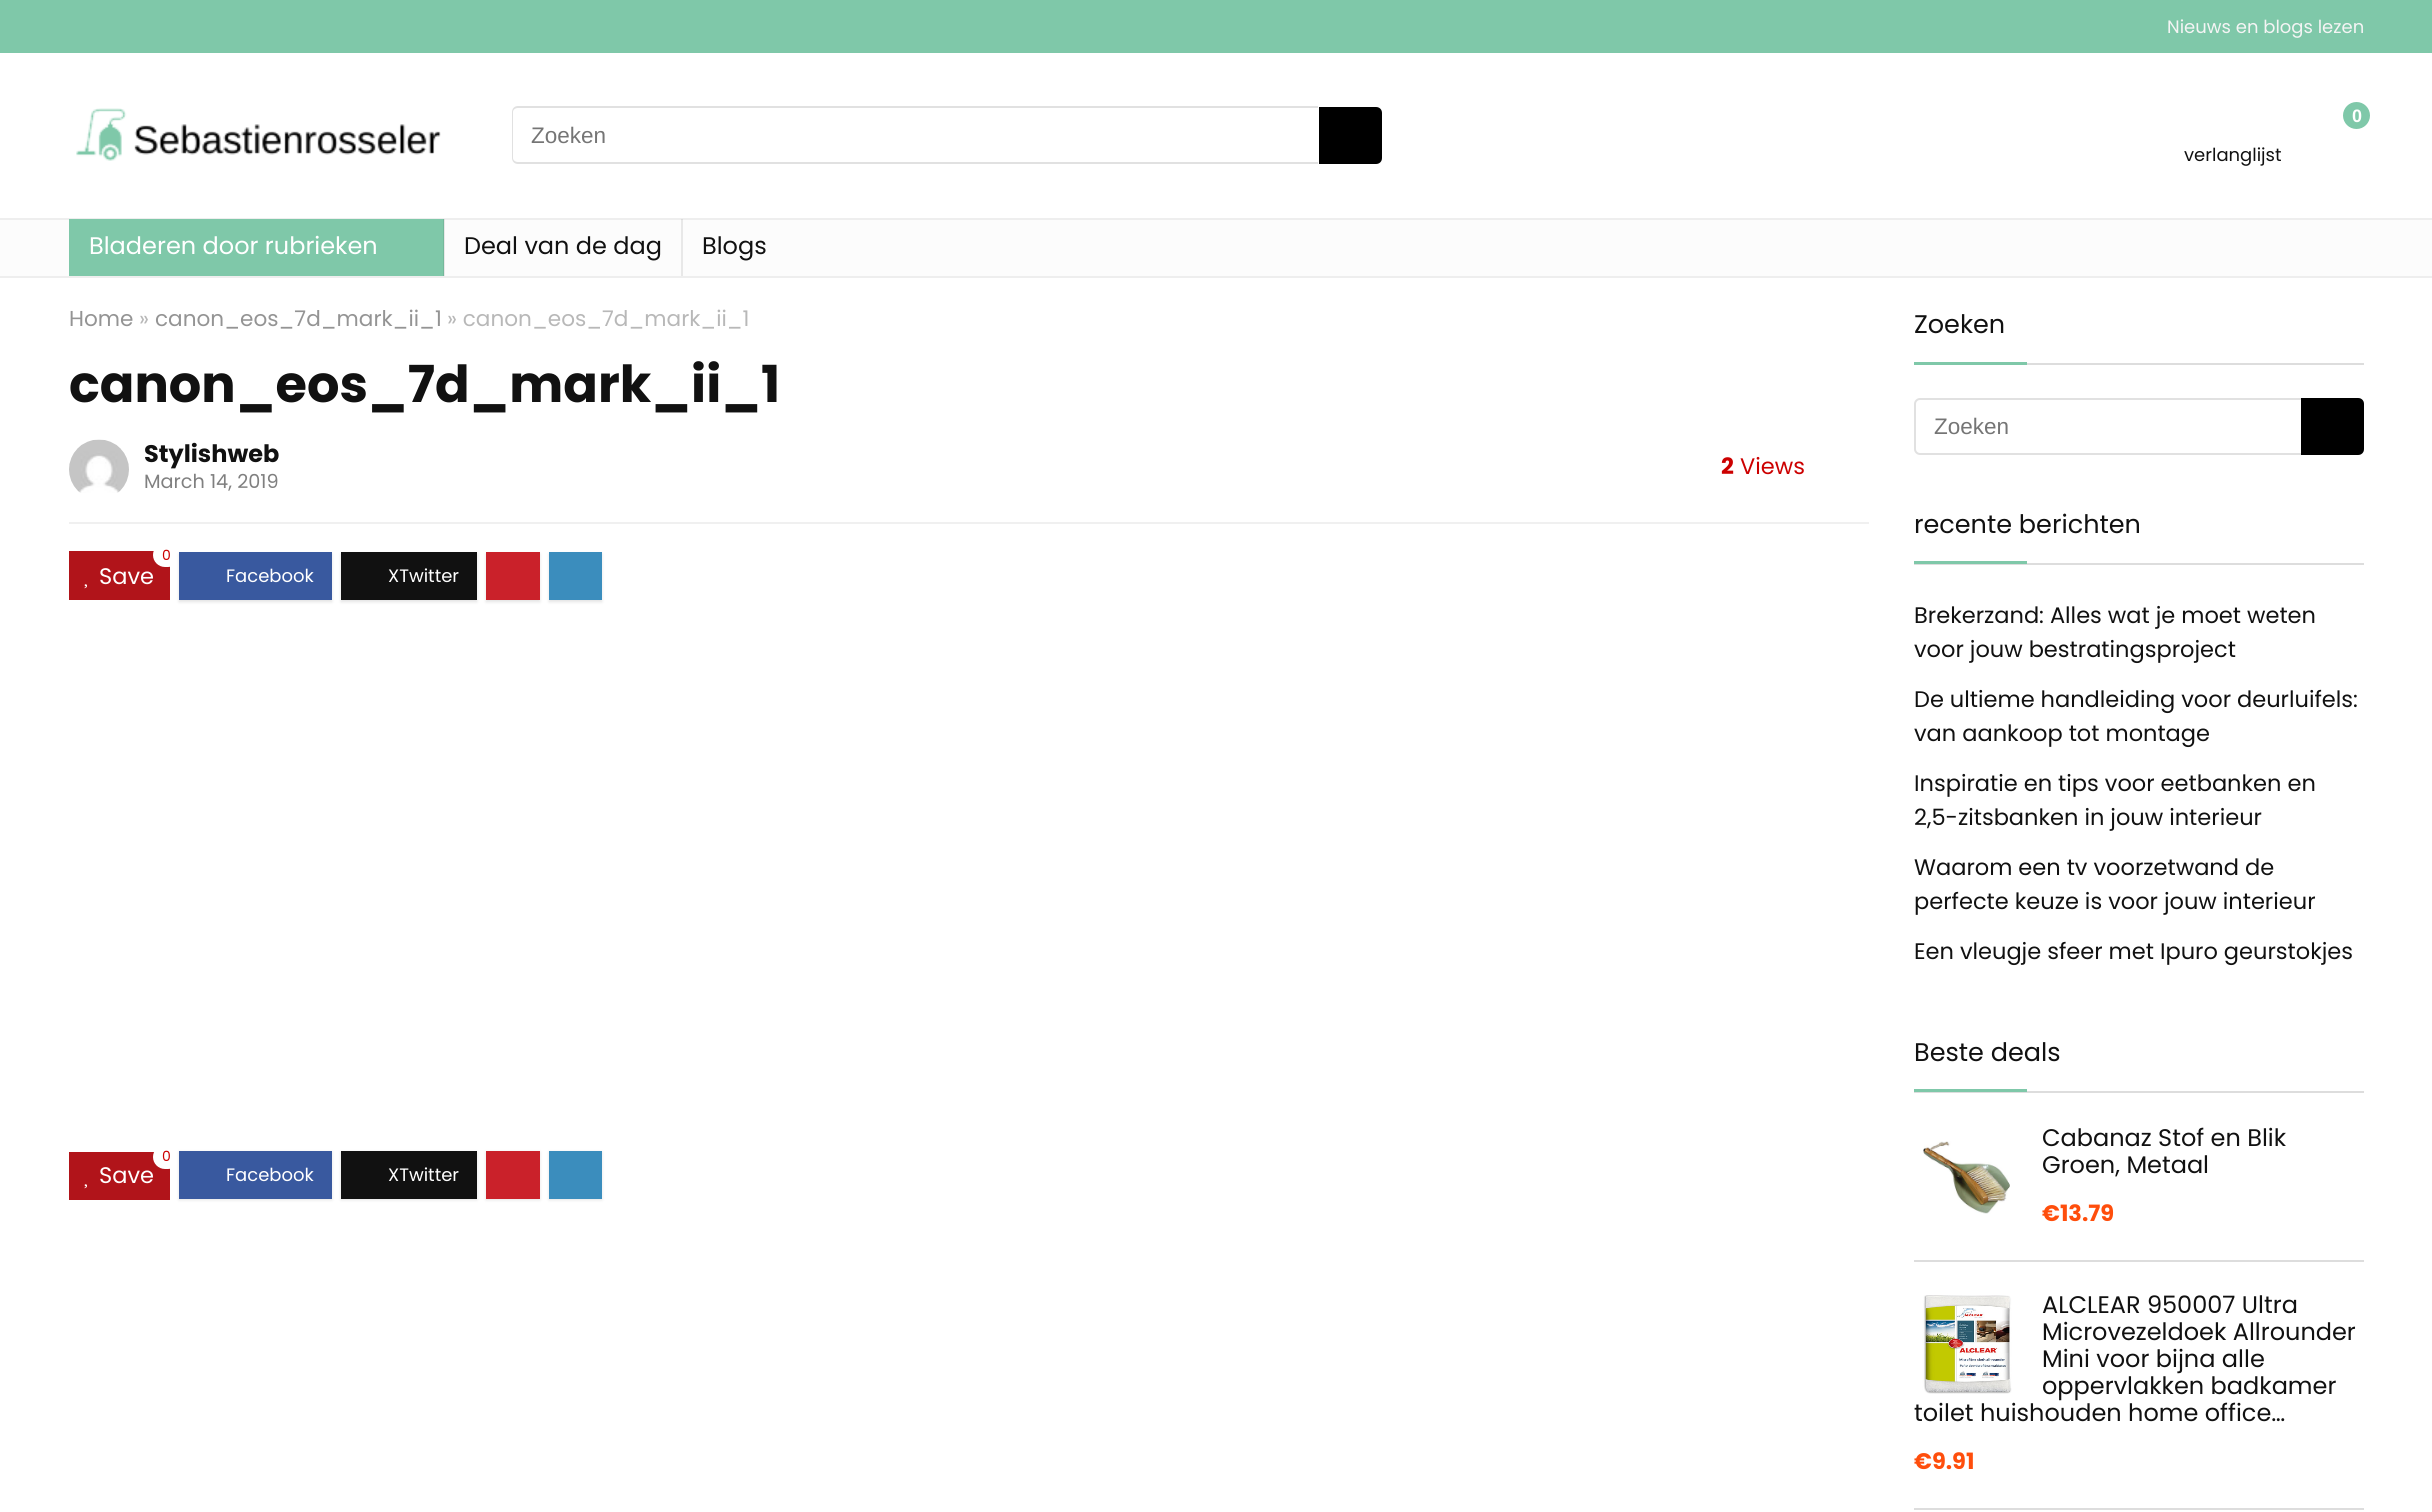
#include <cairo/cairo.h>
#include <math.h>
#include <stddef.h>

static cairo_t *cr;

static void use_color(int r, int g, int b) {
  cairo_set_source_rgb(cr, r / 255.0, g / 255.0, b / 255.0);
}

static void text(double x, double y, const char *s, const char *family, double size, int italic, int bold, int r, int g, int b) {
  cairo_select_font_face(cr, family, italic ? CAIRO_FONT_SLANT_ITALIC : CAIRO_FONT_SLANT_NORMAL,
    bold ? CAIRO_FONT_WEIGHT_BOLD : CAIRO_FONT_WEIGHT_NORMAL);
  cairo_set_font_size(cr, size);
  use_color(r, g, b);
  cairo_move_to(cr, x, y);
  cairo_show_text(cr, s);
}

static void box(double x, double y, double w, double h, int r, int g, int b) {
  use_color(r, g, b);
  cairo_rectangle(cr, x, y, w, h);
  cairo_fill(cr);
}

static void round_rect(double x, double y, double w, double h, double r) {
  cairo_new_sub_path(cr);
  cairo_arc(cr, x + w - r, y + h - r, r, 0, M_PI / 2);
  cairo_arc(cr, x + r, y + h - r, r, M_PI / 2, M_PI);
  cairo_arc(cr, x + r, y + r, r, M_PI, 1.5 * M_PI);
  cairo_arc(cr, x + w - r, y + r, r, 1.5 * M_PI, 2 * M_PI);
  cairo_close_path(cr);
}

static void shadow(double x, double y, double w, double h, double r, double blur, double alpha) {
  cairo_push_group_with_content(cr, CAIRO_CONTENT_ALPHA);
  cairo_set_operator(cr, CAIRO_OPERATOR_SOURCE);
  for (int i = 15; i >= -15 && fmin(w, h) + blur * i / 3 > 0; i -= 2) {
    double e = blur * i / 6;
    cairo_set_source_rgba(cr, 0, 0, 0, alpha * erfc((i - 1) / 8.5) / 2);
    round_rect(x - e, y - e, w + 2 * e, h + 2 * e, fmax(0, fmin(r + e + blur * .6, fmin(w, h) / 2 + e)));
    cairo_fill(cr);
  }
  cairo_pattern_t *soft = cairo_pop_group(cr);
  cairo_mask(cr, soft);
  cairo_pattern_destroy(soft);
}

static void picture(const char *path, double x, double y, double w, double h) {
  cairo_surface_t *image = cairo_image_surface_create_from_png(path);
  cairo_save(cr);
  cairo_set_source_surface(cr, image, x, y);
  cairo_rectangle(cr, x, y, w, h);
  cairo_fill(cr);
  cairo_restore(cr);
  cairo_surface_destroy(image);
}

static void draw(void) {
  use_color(255, 255, 255);
  cairo_paint(cr);
  box(0, 0, 2432, 53, 127, 200, 169);
  picture("img_01.png", 76, 108, 365, 53);
  use_color(225, 225, 225);
  cairo_set_fill_rule(cr, CAIRO_FILL_RULE_EVEN_ODD);
  cairo_new_path(cr);
  cairo_move_to(cr, 518, 106);
  cairo_line_to(cr, 1318, 106);
  cairo_line_to(cr, 1318, 164);
  cairo_line_to(cr, 518, 164);
  cairo_curve_to(cr, 514, 164, 512, 161, 512, 158);
  cairo_line_to(cr, 512, 112);
  cairo_curve_to(cr, 512, 109, 514, 106, 518, 106);
  cairo_close_path(cr);
  cairo_move_to(cr, 518, 108);
  cairo_line_to(cr, 1318, 108);
  cairo_line_to(cr, 1318, 162);
  cairo_line_to(cr, 518, 162);
  cairo_curve_to(cr, 515, 162, 513, 160, 513, 158);
  cairo_line_to(cr, 513, 112);
  cairo_curve_to(cr, 513, 110, 515, 108, 518, 108);
  cairo_close_path(cr);
  cairo_fill(cr);
  use_color(0, 0, 0);
  cairo_new_path(cr);
  cairo_move_to(cr, 1319, 107);
  cairo_line_to(cr, 1376, 107);
  cairo_curve_to(cr, 1379.5, 107, 1382, 109.5, 1382, 113);
  cairo_line_to(cr, 1382, 158);
  cairo_curve_to(cr, 1382, 161.5, 1379.5, 164, 1376, 164);
  cairo_line_to(cr, 1319, 164);
  cairo_close_path(cr);
  cairo_fill(cr);
  use_color(127, 200, 169);
  cairo_arc(cr, 2356.5, 115.5, 13.5, 0, 2 * M_PI);
  cairo_fill(cr);
  box(0, 220, 2432, 56, 252, 252, 252);
  box(681, 219, 2, 57, 232, 232, 232);
  box(444, 219, 1, 57, 232, 232, 232);
  box(0, 218, 2432, 2, 238, 238, 238);
  box(681, 219, 2, 1, 219, 219, 219);
  box(443, 219, 2, 1, 219, 219, 219);
  box(0, 276, 2432, 2, 238, 238, 238);
  box(69, 219, 374, 57, 127, 200, 169);
  box(443, 219, 1, 57, 117, 184, 155);
  box(69, 522, 1800, 2, 240, 240, 240);
  picture("img_02.png", 69, 439, 60, 54);
  box(69, 551, 101, 49, 177, 20, 26);
  cairo_save(cr);
  cairo_set_fill_rule(cr, CAIRO_FILL_RULE_WINDING);
  cairo_rectangle(cr, 69, 546, 1800, 63);
  cairo_clip(cr);
  use_color(255, 255, 255);
  round_rect(153, 543, 27, 24, 12);
  cairo_fill(cr);
  cairo_restore(cr);
  picture("img_03.png", 84, 584, 3, 5);
  use_color(228, 228, 228);
  shadow(179, 554, 153, 48, 0, 1.5, 1);
  box(179, 552, 153, 48, 57, 89, 159);
  use_color(228, 228, 228);
  shadow(341, 554, 136, 48, 0, 1.5, 1);
  box(341, 552, 136, 48, 17, 17, 17);
  use_color(228, 228, 228);
  shadow(486, 554, 54, 48, 0, 1.5, 1);
  box(486, 552, 54, 48, 202, 33, 42);
  use_color(228, 228, 228);
  shadow(549, 554, 53, 48, 0, 1.5, 1);
  box(549, 552, 53, 48, 59, 141, 189);
  box(69, 1152, 101, 48, 177, 20, 26);
  use_color(255, 255, 255);
  round_rect(153, 1145, 27, 24, 12);
  cairo_fill(cr);
  picture("img_03.png", 84, 1184, 3, 5);
  use_color(228, 228, 228);
  shadow(179, 1152, 153, 48, 0, 1.5, 1);
  box(179, 1151, 153, 48, 57, 89, 159);
  use_color(228, 228, 228);
  shadow(341, 1152, 136, 48, 0, 1.5, 1);
  box(341, 1151, 136, 48, 17, 17, 17);
  use_color(228, 228, 228);
  shadow(486, 1152, 54, 48, 0, 1.5, 1);
  box(486, 1151, 54, 48, 202, 33, 42);
  use_color(228, 228, 228);
  shadow(549, 1152, 53, 48, 0, 1.5, 1);
  box(549, 1151, 53, 48, 59, 141, 189);
  box(2027, 363, 337, 2, 221, 221, 221);
  box(1914, 362, 113, 3, 127, 200, 169);
  round_rect(1915, 399, 448, 55, 5);
  use_color(225, 225, 225);
  cairo_stroke(cr);
  use_color(0, 0, 0);
  cairo_new_path(cr);
  cairo_move_to(cr, 2301, 398);
  cairo_line_to(cr, 2358, 398);
  cairo_curve_to(cr, 2361.5, 398, 2364, 400.5, 2364, 404);
  cairo_line_to(cr, 2364, 449);
  cairo_curve_to(cr, 2364, 452.5, 2361.5, 455, 2358, 455);
  cairo_line_to(cr, 2301, 455);
  cairo_close_path(cr);
  cairo_fill(cr);
  box(1914, 563, 450, 2, 221, 221, 221);
  box(1914, 561, 113, 3, 127, 200, 169);
  box(1914, 1091, 450, 2, 221, 221, 221);
  box(1914, 1089, 113, 3, 127, 200, 169);
  box(1914, 1260, 450, 2, 221, 221, 221);
  picture("img_04.png", 1923, 1141, 87, 73);
  box(1914, 1508, 450, 2, 221, 221, 221);
  picture("img_05.png", 1922, 1295, 90, 99);
  text(2167, 33, "Nieuws en blogs lezen", "Poppins", 18, 0, 0, 244, 244, 244);
  text(531, 143, "Zoeken", "Liberation Sans", 22.5, 0, 0, 117, 117, 117);
  text(2352, 122, "0", "Liberation Sans", 18, 0, 1, 255, 255, 255);
  text(2184, 161, "verlanglijst", "Poppins", 18, 0, 0, 17, 17, 17);
  text(89, 254, "Bladeren door rubrieken", "Poppins", 24, 0, 0, 255, 255, 255);
  text(464, 254, "Deal van de dag", "Poppins", 24, 0, 0, 17, 17, 17);
  text(702, 254, "Blogs", "Poppins", 24, 0, 0, 17, 17, 17);
  text(69, 326, "Home", "Poppins", 21.6, 0, 0, 148, 148, 148);
  text(139, 326, "»", "Poppins", 21.6, 0, 0, 184, 184, 184);
  text(155, 326, "canon_eos_7d_mark_ii_1", "Poppins", 21.6, 0, 0, 148, 148, 148);
  text(447, 326, "» canon_eos_7d_mark_ii_1", "Poppins", 21.6, 0, 0, 184, 184, 184);
  text(69, 402, "canon_eos_7d_mark_ii_1", "Poppins", 51, 0, 1, 17, 17, 17);
  text(144, 462, "Stylishweb", "Poppins", 24, 0, 1, 17, 17, 17);
  text(144, 488, "March 14, 2019", "Poppins", 19.25, 0, 0, 128, 128, 128);
  text(1721, 474, "2", "Poppins", 22.5, 0, 1, 204, 0, 0);
  text(1740, 474, "Views", "Poppins", 22.5, 0, 0, 204, 0, 0);
  text(162, 560, "0", "Poppins", 14, 0, 0, 204, 0, 0);
  text(99, 584, "Save", "Poppins", 22.5, 0, 0, 255, 255, 255);
  text(226, 582, "Facebook", "Poppins", 18, 0, 0, 255, 255, 255);
  text(388, 582, "XTwitter", "Poppins", 18, 0, 0, 255, 255, 255);
  text(162, 1161, "0", "Poppins", 14, 0, 0, 204, 0, 0);
  text(99, 1183, "Save", "Poppins", 22.5, 0, 0, 255, 255, 255);
  text(226, 1181, "Facebook", "Poppins", 18, 0, 0, 255, 255, 255);
  text(388, 1181, "XTwitter", "Poppins", 18, 0, 0, 255, 255, 255);
  text(1914, 333, "Zoeken", "Poppins", 25.5, 0, 0, 17, 17, 17);
  text(1934, 434, "Zoeken", "Liberation Sans", 22.5, 0, 0, 117, 117, 117);
  text(1914, 533, "recente berichten", "Poppins", 25.5, 0, 0, 17, 17, 17);
  text(1914, 623, "Brekerzand: Alles wat je moet weten", "Poppins", 22.5, 0, 0, 17, 17, 17);
  text(1914, 657, "voor jouw bestratingsproject", "Poppins", 22.5, 0, 0, 17, 17, 17);
  text(1914, 707, "De ultieme handleiding voor deurluifels:", "Poppins", 22.5, 0, 0, 17, 17, 17);
  text(1914, 741, "van aankoop tot montage", "Poppins", 22.5, 0, 0, 17, 17, 17);
  text(1914, 791, "Inspiratie en tips voor eetbanken en", "Poppins", 22.5, 0, 0, 17, 17, 17);
  text(1914, 825, "2,5-zitsbanken in jouw interieur", "Poppins", 22.5, 0, 0, 17, 17, 17);
  text(1914, 875, "Waarom een tv voorzetwand de", "Poppins", 22.5, 0, 0, 17, 17, 17);
  text(1914, 909, "perfecte keuze is voor jouw interieur", "Poppins", 22.5, 0, 0, 17, 17, 17);
  text(1914, 959, "Een vleugje sfeer met Ipuro geurstokjes", "Poppins", 22.5, 0, 0, 17, 17, 17);
  text(1914, 1061, "Beste deals", "Poppins", 25.5, 0, 0, 17, 17, 17);
  text(2042, 1146, "Cabanaz Stof en Blik", "Poppins", 24, 0, 0, 17, 17, 17);
  text(2042, 1173, "Groen, Metaal", "Poppins", 24, 0, 0, 17, 17, 17);
  text(2042, 1221, "€13.79", "Poppins", 22.5, 0, 1, 255, 78, 12);
  text(2042, 1313, "ALCLEAR 950007 Ultra", "Poppins", 24, 0, 0, 17, 17, 17);
  text(2042, 1340, "Microvezeldoek Allrounder", "Poppins", 24, 0, 0, 17, 17, 17);
  text(2042, 1367, "Mini voor bijna alle", "Poppins", 24, 0, 0, 17, 17, 17);
  text(2042, 1394, "oppervlakken badkamer", "Poppins", 24, 0, 0, 17, 17, 17);
  text(1914, 1421, "toilet huishouden home office…", "Poppins", 24, 0, 0, 17, 17, 17);
  text(1914, 1469, "€9.91", "Poppins", 22.5, 0, 1, 255, 78, 12);
}

int main(void) {
  cairo_surface_t *surface = cairo_image_surface_create(CAIRO_FORMAT_RGB24, 2432, 1512);
  cr = cairo_create(surface);
  cairo_font_options_t *options = cairo_font_options_create();
  cairo_font_options_set_hint_metrics(options, CAIRO_HINT_METRICS_OFF);
  cairo_font_options_set_hint_style(options, CAIRO_HINT_STYLE_NONE);
  cairo_set_font_options(cr, options);
  cairo_set_miter_limit(cr, 4);
  draw();
  cairo_surface_write_to_png(surface, "out.png");
  cairo_font_options_destroy(options);
  cairo_destroy(cr);
  cairo_surface_destroy(surface);
  return 0;
}
